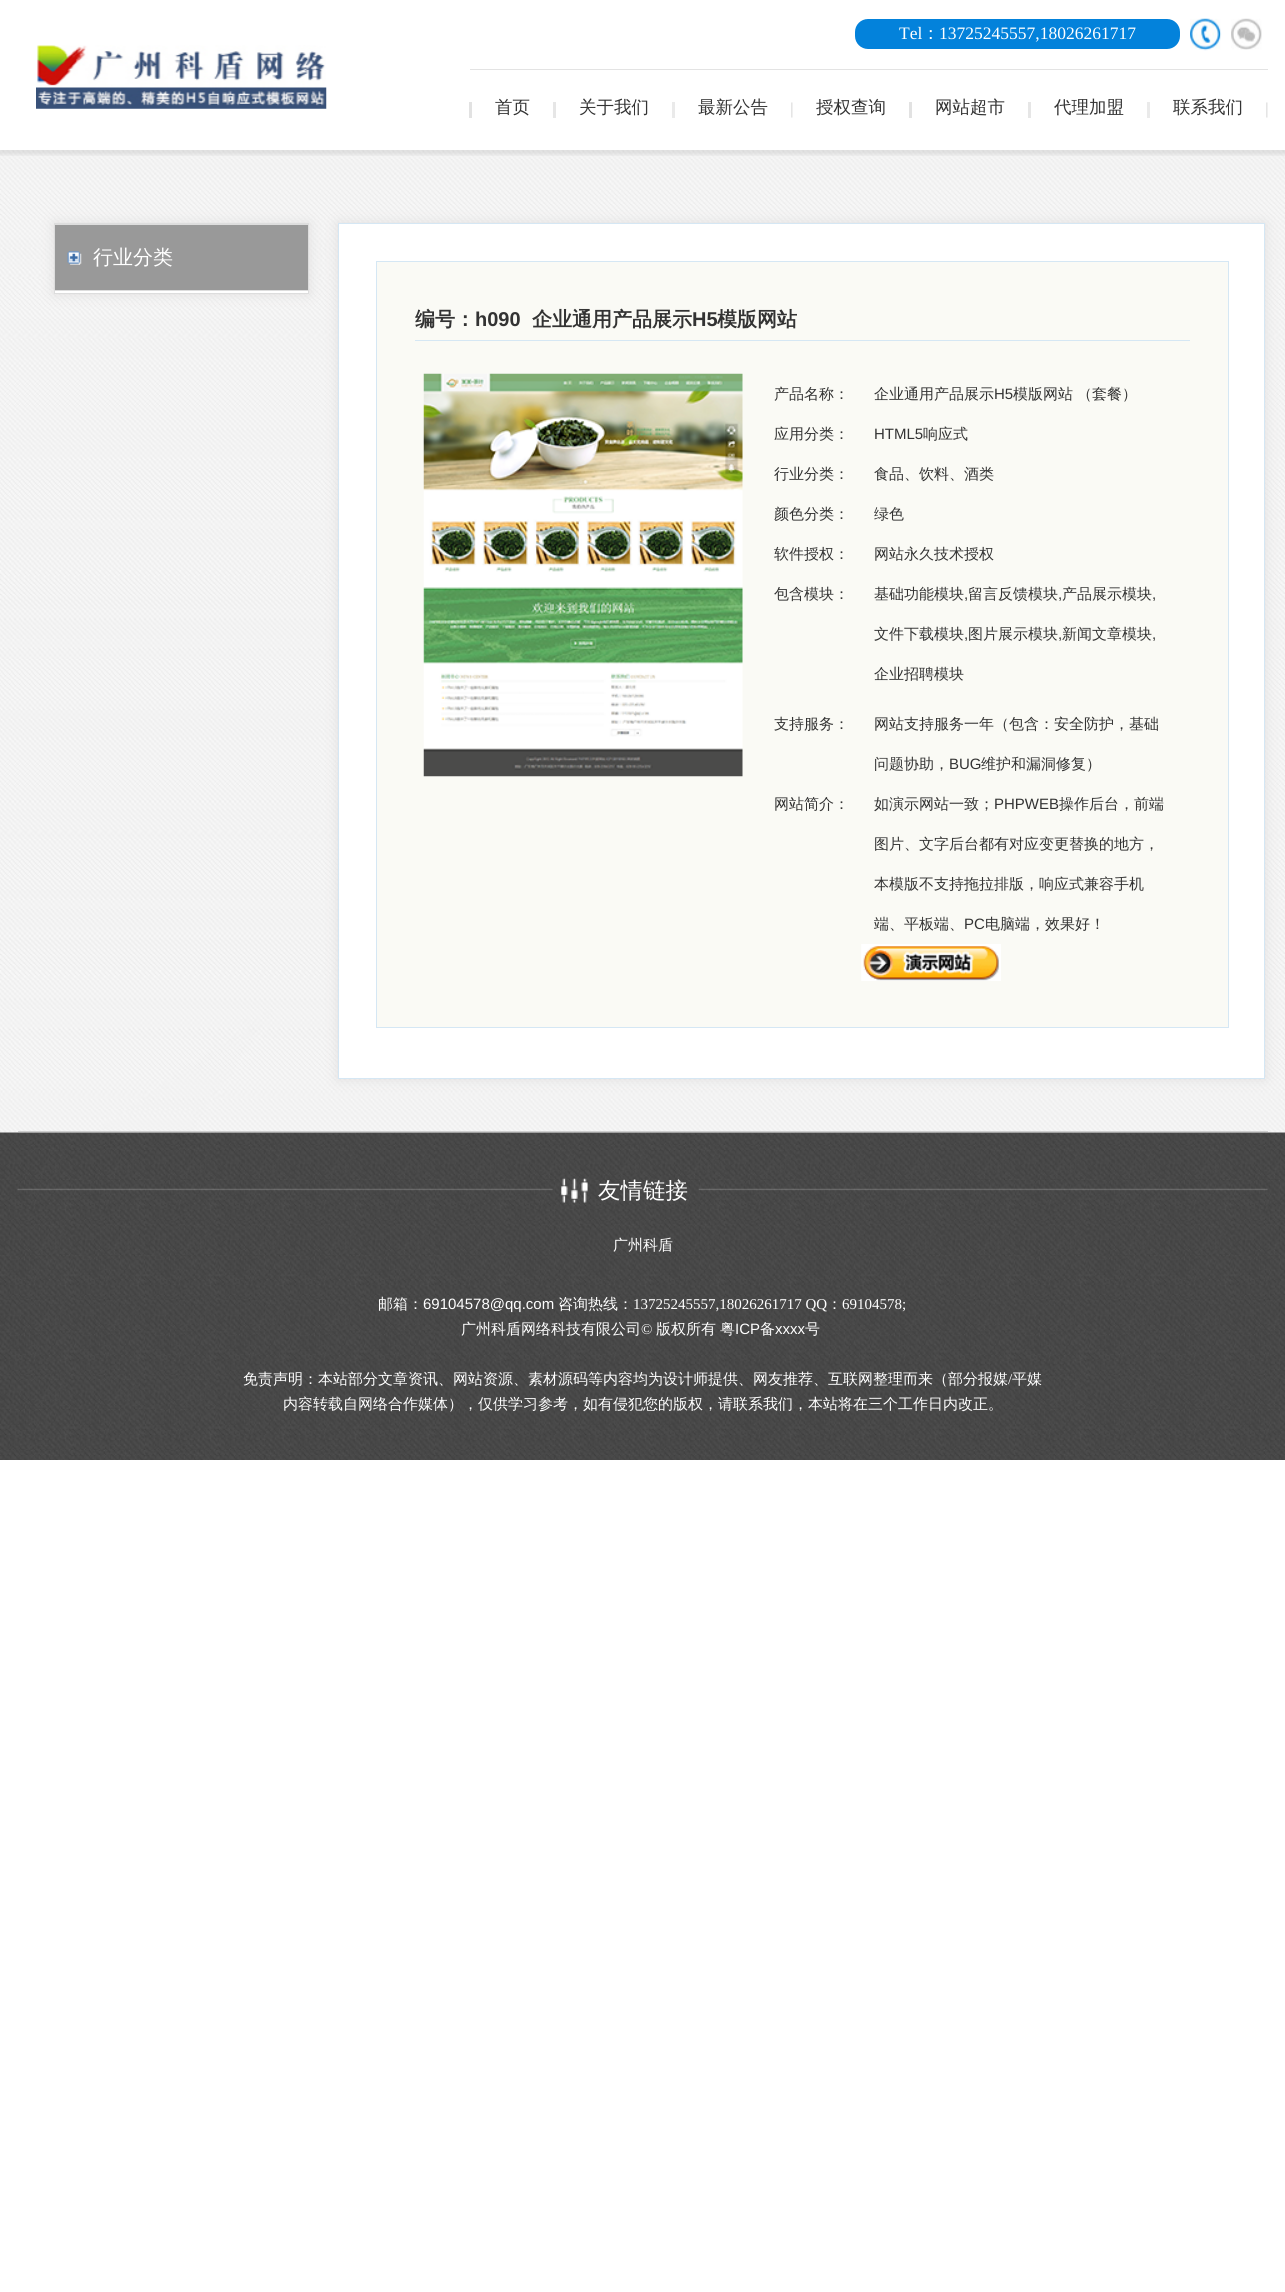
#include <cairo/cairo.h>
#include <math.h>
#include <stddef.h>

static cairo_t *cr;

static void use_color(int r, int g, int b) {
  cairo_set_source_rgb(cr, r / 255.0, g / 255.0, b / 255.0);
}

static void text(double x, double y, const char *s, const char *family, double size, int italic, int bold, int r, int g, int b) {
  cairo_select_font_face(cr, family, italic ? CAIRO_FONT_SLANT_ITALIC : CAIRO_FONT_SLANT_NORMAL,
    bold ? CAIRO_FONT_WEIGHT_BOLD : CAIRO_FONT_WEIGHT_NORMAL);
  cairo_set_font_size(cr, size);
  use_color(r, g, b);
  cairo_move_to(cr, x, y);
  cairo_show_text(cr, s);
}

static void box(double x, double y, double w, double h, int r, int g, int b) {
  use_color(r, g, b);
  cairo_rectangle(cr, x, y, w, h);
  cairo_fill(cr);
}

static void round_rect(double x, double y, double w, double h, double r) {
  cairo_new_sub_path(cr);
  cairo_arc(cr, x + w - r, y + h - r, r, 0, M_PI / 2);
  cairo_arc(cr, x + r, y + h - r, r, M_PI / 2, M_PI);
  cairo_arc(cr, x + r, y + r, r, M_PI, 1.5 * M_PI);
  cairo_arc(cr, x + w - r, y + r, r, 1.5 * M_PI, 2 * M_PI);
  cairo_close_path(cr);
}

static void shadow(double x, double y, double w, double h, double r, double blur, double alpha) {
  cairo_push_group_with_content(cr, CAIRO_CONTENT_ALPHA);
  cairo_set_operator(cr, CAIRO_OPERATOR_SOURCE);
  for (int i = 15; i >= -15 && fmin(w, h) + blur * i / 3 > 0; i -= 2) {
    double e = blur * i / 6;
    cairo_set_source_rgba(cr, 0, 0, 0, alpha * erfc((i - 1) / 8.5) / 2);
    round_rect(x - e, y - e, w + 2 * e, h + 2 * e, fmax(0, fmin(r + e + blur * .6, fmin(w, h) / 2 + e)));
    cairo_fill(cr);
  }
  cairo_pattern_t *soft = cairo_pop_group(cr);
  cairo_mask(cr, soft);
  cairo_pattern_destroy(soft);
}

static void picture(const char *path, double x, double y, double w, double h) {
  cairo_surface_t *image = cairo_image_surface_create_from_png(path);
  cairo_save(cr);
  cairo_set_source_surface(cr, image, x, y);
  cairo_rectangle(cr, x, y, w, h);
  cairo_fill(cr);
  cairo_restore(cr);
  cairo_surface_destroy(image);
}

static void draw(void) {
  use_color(255, 255, 255);
  cairo_paint(cr);
  picture("img_01.png", 36, 45, 291, 64);
  use_color(3, 130, 219);
  round_rect(855, 19, 325, 30, 13);
  cairo_fill(cr);
  picture("img_02.png", 1190, 18, 32, 33);
  picture("img_03.png", 1231, 18, 31, 32);
  box(470, 69, 798, 1, 227, 227, 227);
  box(469, 102, 3, 16, 226, 226, 226);
  box(553, 102, 3, 16, 230, 230, 230);
  box(672, 102, 3, 16, 234, 234, 234);
  picture("img_04.png", 791, 102, 2, 16);
  box(909, 102, 3, 16, 226, 226, 226);
  box(1028, 102, 3, 16, 230, 230, 230);
  box(1147, 102, 3, 16, 234, 234, 234);
  picture("img_04.png", 1266, 102, 2, 16);
  picture("img_06.png", 0, 150, 1285, 983);
  picture("img_05.png", 0, 150, 1285, 6);
  box(18, 1131, 1250, 1, 207, 207, 207);
  use_color(224, 222, 222);
  shadow(54, 223, 255, 71, 0, 6, 1);
  box(55, 291, 253, 2, 255, 255, 255);
  cairo_rectangle(cr, 54.5, 223.5, 254, 70);
  use_color(221, 221, 221);
  cairo_set_line_width(cr, 1);
  cairo_stroke(cr);
  box(55, 225, 253, 65, 153, 153, 153);
  picture("img_07.png", 67, 251, 15, 14);
  box(55, 224, 253, 1, 221, 221, 221);
  box(55, 290, 253, 1, 221, 221, 221);
  use_color(224, 222, 222);
  shadow(338, 223, 927, 856, 0, 6, 1);
  use_color(255, 255, 255);
  cairo_rectangle(cr, 338.5, 223.5, 926, 855);
  cairo_fill_preserve(cr);
  use_color(213, 231, 244);
  cairo_stroke(cr);
  use_color(250, 250, 245);
  cairo_rectangle(cr, 376.5, 261.5, 852, 766);
  cairo_fill_preserve(cr);
  use_color(213, 231, 244);
  cairo_stroke(cr);
  box(415, 340, 775, 1, 213, 231, 244);
  picture("img_08.png", 423, 373, 320, 404);
  picture("img_09.png", 861, 944, 140, 37);
  picture("img_10.png", 0, 1132, 1285, 328);
  picture("img_11.png", 17, 1178, 1251, 25);
  text(899, 39, "Tel", "Liberation Serif", 17.5, 0, 0, 255, 255, 255);
  text(922, 39, "：", "WenQuanYi Zen Hei Medium", 17.5, 0, 0, 255, 255, 255);
  text(939, 39, "13725245557,18026261717", "Liberation Serif", 17.5, 0, 0, 255, 255, 255);
  text(495, 113, "首页", "WenQuanYi Zen Hei Medium", 17.5, 0, 0, 51, 51, 51);
  text(579, 113, "关于我们", "WenQuanYi Zen Hei Medium", 17.5, 0, 0, 51, 51, 51);
  text(698, 113, "最新公告", "WenQuanYi Zen Hei Medium", 17.5, 0, 0, 51, 51, 51);
  text(816, 113, "授权查询", "WenQuanYi Zen Hei Medium", 17.5, 0, 0, 51, 51, 51);
  text(935, 113, "网站超市", "WenQuanYi Zen Hei Medium", 17.5, 0, 0, 51, 51, 51);
  text(1054, 113, "代理加盟", "WenQuanYi Zen Hei Medium", 17.5, 0, 0, 51, 51, 51);
  text(1173, 113, "联系我们", "WenQuanYi Zen Hei Medium", 17.5, 0, 0, 51, 51, 51);
  text(93, 264, "行业分类", "WenQuanYi Zen Hei Medium", 20, 0, 0, 255, 255, 255);
  text(415, 326, "编号：", "WenQuanYi Zen Hei", 20, 0, 1, 51, 51, 51);
  text(475, 326, "h090", "Liberation Sans", 20, 0, 1, 51, 51, 51);
  text(532, 326, "企业通用产品展示", "WenQuanYi Zen Hei", 20, 0, 1, 51, 51, 51);
  text(692, 326, "H5", "Liberation Sans", 20, 0, 1, 51, 51, 51);
  text(717, 326, "模版网站", "WenQuanYi Zen Hei", 20, 0, 1, 51, 51, 51);
  text(774, 399, "产品名称：", "WenQuanYi Zen Hei Medium", 15, 0, 0, 51, 51, 51);
  text(874, 399, "企业通用产品展示", "WenQuanYi Zen Hei Medium", 15, 0, 0, 51, 51, 51);
  text(994, 399, "H5", "Liberation Sans", 15, 0, 0, 51, 51, 51);
  text(1013, 399, "模版网站", "WenQuanYi Zen Hei Medium", 15, 0, 0, 51, 51, 51);
  text(1077, 399, "（套餐）", "WenQuanYi Zen Hei Medium", 15, 0, 0, 51, 51, 51);
  text(774, 439, "应用分类：", "WenQuanYi Zen Hei Medium", 15, 0, 0, 51, 51, 51);
  text(874, 439, "HTML5", "Liberation Sans", 15, 0, 0, 51, 51, 51);
  text(923, 439, "响应式", "WenQuanYi Zen Hei Medium", 15, 0, 0, 51, 51, 51);
  text(774, 479, "行业分类：", "WenQuanYi Zen Hei Medium", 15, 0, 0, 51, 51, 51);
  text(874, 479, "食品、饮料、酒类", "WenQuanYi Zen Hei Medium", 15, 0, 0, 51, 51, 51);
  text(774, 519, "颜色分类：", "WenQuanYi Zen Hei Medium", 15, 0, 0, 51, 51, 51);
  text(874, 519, "绿色", "WenQuanYi Zen Hei Medium", 15, 0, 0, 51, 51, 51);
  text(774, 559, "软件授权：", "WenQuanYi Zen Hei Medium", 15, 0, 0, 51, 51, 51);
  text(874, 559, "网站永久技术授权", "WenQuanYi Zen Hei Medium", 15, 0, 0, 51, 51, 51);
  text(774, 599, "包含模块：", "WenQuanYi Zen Hei Medium", 15, 0, 0, 51, 51, 51);
  text(874, 599, "基础功能模块", "WenQuanYi Zen Hei Medium", 15, 0, 0, 51, 51, 51);
  text(964, 599, ",", "Liberation Sans", 15, 0, 0, 51, 51, 51);
  text(968, 599, "留言反馈模块", "WenQuanYi Zen Hei Medium", 15, 0, 0, 51, 51, 51);
  text(1058, 599, ",", "Liberation Sans", 15, 0, 0, 51, 51, 51);
  text(1062, 599, "产品展示模块", "WenQuanYi Zen Hei Medium", 15, 0, 0, 51, 51, 51);
  text(1152, 599, ",", "Liberation Sans", 15, 0, 0, 51, 51, 51);
  text(874, 639, "文件下载模块", "WenQuanYi Zen Hei Medium", 15, 0, 0, 51, 51, 51);
  text(964, 639, ",", "Liberation Sans", 15, 0, 0, 51, 51, 51);
  text(968, 639, "图片展示模块", "WenQuanYi Zen Hei Medium", 15, 0, 0, 51, 51, 51);
  text(1058, 639, ",", "Liberation Sans", 15, 0, 0, 51, 51, 51);
  text(1062, 639, "新闻文章模块", "WenQuanYi Zen Hei Medium", 15, 0, 0, 51, 51, 51);
  text(1152, 639, ",", "Liberation Sans", 15, 0, 0, 51, 51, 51);
  text(874, 679, "企业招聘模块", "WenQuanYi Zen Hei Medium", 15, 0, 0, 51, 51, 51);
  text(774, 729, "支持服务：", "WenQuanYi Zen Hei Medium", 15, 0, 0, 51, 51, 51);
  text(874, 729, "网站支持服务一年（包含：安全防护，基础", "WenQuanYi Zen Hei Medium", 15, 0, 0, 51, 51, 51);
  text(874, 769, "问题协助，", "WenQuanYi Zen Hei Medium", 15, 0, 0, 51, 51, 51);
  text(949, 769, "BUG", "Liberation Sans", 15, 0, 0, 51, 51, 51);
  text(981, 769, "维护和漏洞修复）", "WenQuanYi Zen Hei Medium", 15, 0, 0, 51, 51, 51);
  text(774, 809, "网站简介：", "WenQuanYi Zen Hei Medium", 15, 0, 0, 51, 51, 51);
  text(874, 809, "如演示网站一致；", "WenQuanYi Zen Hei Medium", 15, 0, 0, 51, 51, 51);
  text(994, 809, "PHPWEB", "Liberation Sans", 15, 0, 0, 51, 51, 51);
  text(1059, 809, "操作后台，前端", "WenQuanYi Zen Hei Medium", 15, 0, 0, 51, 51, 51);
  text(874, 849, "图片、文字后台都有对应变更替换的地方，", "WenQuanYi Zen Hei Medium", 15, 0, 0, 51, 51, 51);
  text(874, 889, "本模版不支持拖拉排版，响应式兼容手机", "WenQuanYi Zen Hei Medium", 15, 0, 0, 51, 51, 51);
  text(874, 929, "端、平板端、", "WenQuanYi Zen Hei Medium", 15, 0, 0, 51, 51, 51);
  text(964, 929, "PC", "Liberation Sans", 15, 0, 0, 51, 51, 51);
  text(985, 929, "电脑端，效果好！", "WenQuanYi Zen Hei Medium", 15, 0, 0, 51, 51, 51);
  text(598, 1198, "友情链接", "WenQuanYi Zen Hei Medium", 22.5, 0, 0, 255, 255, 255);
  text(613, 1250, "广州科盾", "WenQuanYi Zen Hei Medium", 15, 0, 0, 255, 255, 255);
  text(378, 1309, "邮箱：", "WenQuanYi Zen Hei Medium", 15, 0, 0, 255, 255, 255);
  text(423, 1309, "69104578@qq.com", "Liberation Sans", 15, 0, 0, 255, 255, 255);
  text(558, 1309, "咨询热线：", "WenQuanYi Zen Hei Medium", 15, 0, 0, 255, 255, 255);
  text(633, 1309, "13725245557,18026261717 QQ", "Liberation Serif", 15, 0, 0, 255, 255, 255);
  text(827, 1309, "：", "WenQuanYi Zen Hei Medium", 15, 0, 0, 255, 255, 255);
  text(842, 1309, "69104578;", "Liberation Serif", 15, 0, 0, 255, 255, 255);
  text(461, 1334, "广州科盾网络科技有限公司", "WenQuanYi Zen Hei Medium", 15, 0, 0, 255, 255, 255);
  text(641, 1334, "©", "Liberation Serif", 15, 0, 0, 255, 255, 255);
  text(656, 1334, "版权所有", "WenQuanYi Zen Hei Medium", 15, 0, 0, 255, 255, 255);
  text(720, 1334, "粤", "WenQuanYi Zen Hei Medium", 15, 0, 0, 255, 255, 255);
  text(735, 1334, "ICP", "Liberation Sans", 15, 0, 0, 255, 255, 255);
  text(760, 1334, "备", "WenQuanYi Zen Hei Medium", 15, 0, 0, 255, 255, 255);
  text(775, 1334, "xxxx", "Liberation Sans", 15, 0, 0, 255, 255, 255);
  text(805, 1334, "号", "WenQuanYi Zen Hei Medium", 15, 0, 0, 255, 255, 255);
  text(243, 1384, "免责声明：本站部分文章资讯、网站资源、素材源码等内容均为设计师提供、网友推荐、互联网整理而来（部分报媒", "WenQuanYi Zen Hei Medium", 15, 0, 0, 255, 255, 255);
  text(1008, 1384, "/", "Liberation Serif", 15, 0, 0, 255, 255, 255);
  text(1012, 1384, "平媒", "WenQuanYi Zen Hei Medium", 15, 0, 0, 255, 255, 255);
  text(283, 1409, "内容转载自网络合作媒体），仅供学习参考，如有侵犯您的版权，请联系我们，本站将在三个工作日内改正。", "WenQuanYi Zen Hei Medium", 15, 0, 0, 255, 255, 255);
}

int main(void) {
  cairo_surface_t *surface = cairo_image_surface_create(CAIRO_FORMAT_RGB24, 1285, 2292);
  cr = cairo_create(surface);
  cairo_font_options_t *options = cairo_font_options_create();
  cairo_font_options_set_hint_metrics(options, CAIRO_HINT_METRICS_OFF);
  cairo_font_options_set_hint_style(options, CAIRO_HINT_STYLE_NONE);
  cairo_set_font_options(cr, options);
  cairo_set_miter_limit(cr, 4);
  draw();
  cairo_surface_write_to_png(surface, "out.png");
  cairo_font_options_destroy(options);
  cairo_destroy(cr);
  cairo_surface_destroy(surface);
  return 0;
}
